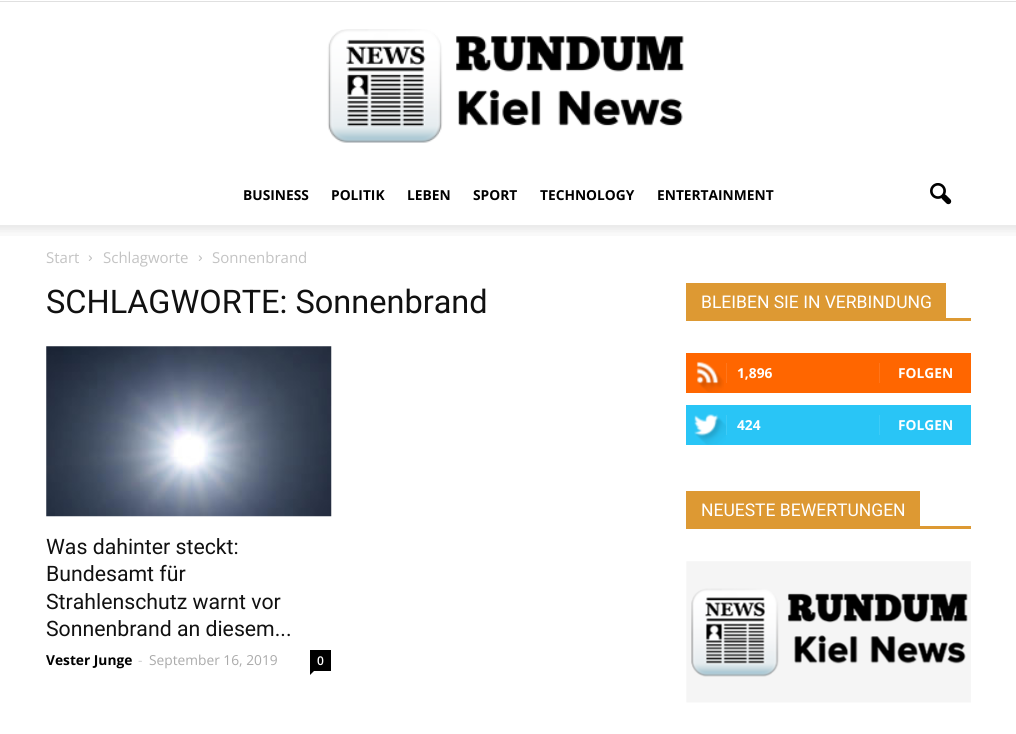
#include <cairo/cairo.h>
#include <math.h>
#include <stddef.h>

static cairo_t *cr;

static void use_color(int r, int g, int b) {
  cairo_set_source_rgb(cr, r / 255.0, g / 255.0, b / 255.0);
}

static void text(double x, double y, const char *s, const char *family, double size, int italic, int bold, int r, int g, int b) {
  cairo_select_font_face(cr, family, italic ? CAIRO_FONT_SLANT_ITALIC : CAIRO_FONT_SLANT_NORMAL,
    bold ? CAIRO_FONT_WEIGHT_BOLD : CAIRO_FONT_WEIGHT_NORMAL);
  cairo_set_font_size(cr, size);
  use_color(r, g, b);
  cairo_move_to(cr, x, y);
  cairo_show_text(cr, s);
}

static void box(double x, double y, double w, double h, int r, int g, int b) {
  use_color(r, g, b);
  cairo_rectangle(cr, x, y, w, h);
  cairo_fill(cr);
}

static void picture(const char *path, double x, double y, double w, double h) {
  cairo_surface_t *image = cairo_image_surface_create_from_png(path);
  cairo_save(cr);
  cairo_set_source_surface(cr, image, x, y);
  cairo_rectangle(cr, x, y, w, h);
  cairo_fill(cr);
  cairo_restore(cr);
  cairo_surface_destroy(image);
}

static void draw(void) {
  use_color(255, 255, 255);
  cairo_paint(cr);
  box(0, 1, 1016, 1, 224, 224, 224);
  picture("img_01.png", 327, 29, 357, 114);
  picture("img_02.png", 930, 183, 22, 22);
  picture("img_03.png", 0, 225, 1016, 11);
  picture("img_04.png", 88, 255, 4, 6);
  picture("img_04.png", 198, 255, 4, 6);
  picture("img_05.png", 46, 346, 286, 171);
  box(310, 650, 21, 21, 0, 0, 0);
  cairo_new_path(cr);
  cairo_move_to(cr, 310, 671);
  cairo_line_to(cr, 314, 671);
  cairo_line_to(cr, 310, 675);
  cairo_close_path(cr);
  cairo_fill(cr);
  box(686, 318, 285, 3, 221, 153, 51);
  box(686, 283, 260, 35, 221, 153, 51);
  box(686, 353, 285, 40, 255, 102, 0);
  picture("img_06.png", 696, 361, 28, 31);
  box(726, 363, 1, 20, 255, 117, 26);
  box(879, 363, 1, 20, 255, 117, 26);
  box(686, 405, 285, 40, 41, 197, 246);
  picture("img_07.png", 694, 414, 32, 31);
  box(726, 415, 1, 20, 62, 203, 247);
  box(879, 415, 1, 20, 62, 203, 247);
  box(686, 526, 285, 3, 221, 153, 51);
  box(686, 491, 234, 35, 221, 153, 51);
  picture("img_08.png", 686, 561, 285, 142);
  text(243, 200, "BUSINESS", "Open Sans", 13.75, 0, 1, 0, 0, 0);
  text(331, 200, "POLITIK", "Open Sans", 13.75, 0, 1, 0, 0, 0);
  text(407, 200, "LEBEN", "Open Sans", 13.75, 0, 1, 0, 0, 0);
  text(473, 200, "SPORT", "Open Sans", 13.75, 0, 1, 0, 0, 0);
  text(540, 200, "TECHNOLOGY", "Open Sans", 13.75, 0, 1, 0, 0, 0);
  text(657, 200, "ENTERTAINMENT", "Open Sans", 13.75, 0, 1, 0, 0, 0);
  text(46, 263, "Start", "Open Sans", 15, 0, 0, 195, 195, 195);
  text(103, 263, "Schlagworte", "Open Sans", 15, 0, 0, 195, 195, 195);
  text(212, 263, "Sonnenbrand", "Open Sans", 15, 0, 0, 195, 195, 195);
  text(46, 313, "SCHLAGWORTE: Sonnenbrand", "Roboto", 32.5, 0, 0, 17, 17, 17);
  text(46, 554, "Was dahinter steckt:", "Roboto", 21.25, 0, 0, 17, 17, 17);
  text(46, 581, "Bundesamt für", "Roboto", 21.25, 0, 0, 17, 17, 17);
  text(46, 609, "Strahlenschutz warnt vor", "Roboto", 21.25, 0, 0, 17, 17, 17);
  text(46, 636, "Sonnenbrand an diesem...", "Roboto", 21.25, 0, 0, 17, 17, 17);
  text(46, 665, "Vester Junge", "Open Sans", 13.75, 0, 1, 0, 0, 0);
  text(138, 665, "-", "Open Sans", 13.75, 0, 0, 204, 204, 204);
  text(149, 665, "September 16, 2019", "Open Sans", 13.75, 0, 0, 170, 170, 170);
  text(317, 665, "0", "Open Sans SemiBold", 12, 0, 0, 255, 255, 255);
  text(701, 308, "BLEIBEN SIE IN VERBINDUNG", "Roboto", 17.5, 0, 0, 255, 255, 255);
  text(737, 378, "1,896", "Open Sans", 13.75, 0, 1, 255, 255, 255);
  text(898, 378, "FOLGEN", "Open Sans", 13.75, 0, 1, 255, 255, 255);
  text(737, 430, "424", "Open Sans", 13.75, 0, 1, 255, 255, 255);
  text(898, 430, "FOLGEN", "Open Sans", 13.75, 0, 1, 255, 255, 255);
  text(701, 516, "NEUESTE BEWERTUNGEN", "Roboto", 17.5, 0, 0, 255, 255, 255);
}

int main(void) {
  cairo_surface_t *surface = cairo_image_surface_create(CAIRO_FORMAT_RGB24, 1016, 734);
  cr = cairo_create(surface);
  cairo_font_options_t *options = cairo_font_options_create();
  cairo_font_options_set_hint_metrics(options, CAIRO_HINT_METRICS_OFF);
  cairo_font_options_set_hint_style(options, CAIRO_HINT_STYLE_NONE);
  cairo_set_font_options(cr, options);
  cairo_set_miter_limit(cr, 4);
  draw();
  cairo_surface_write_to_png(surface, "out.png");
  cairo_font_options_destroy(options);
  cairo_destroy(cr);
  cairo_surface_destroy(surface);
  return 0;
}
